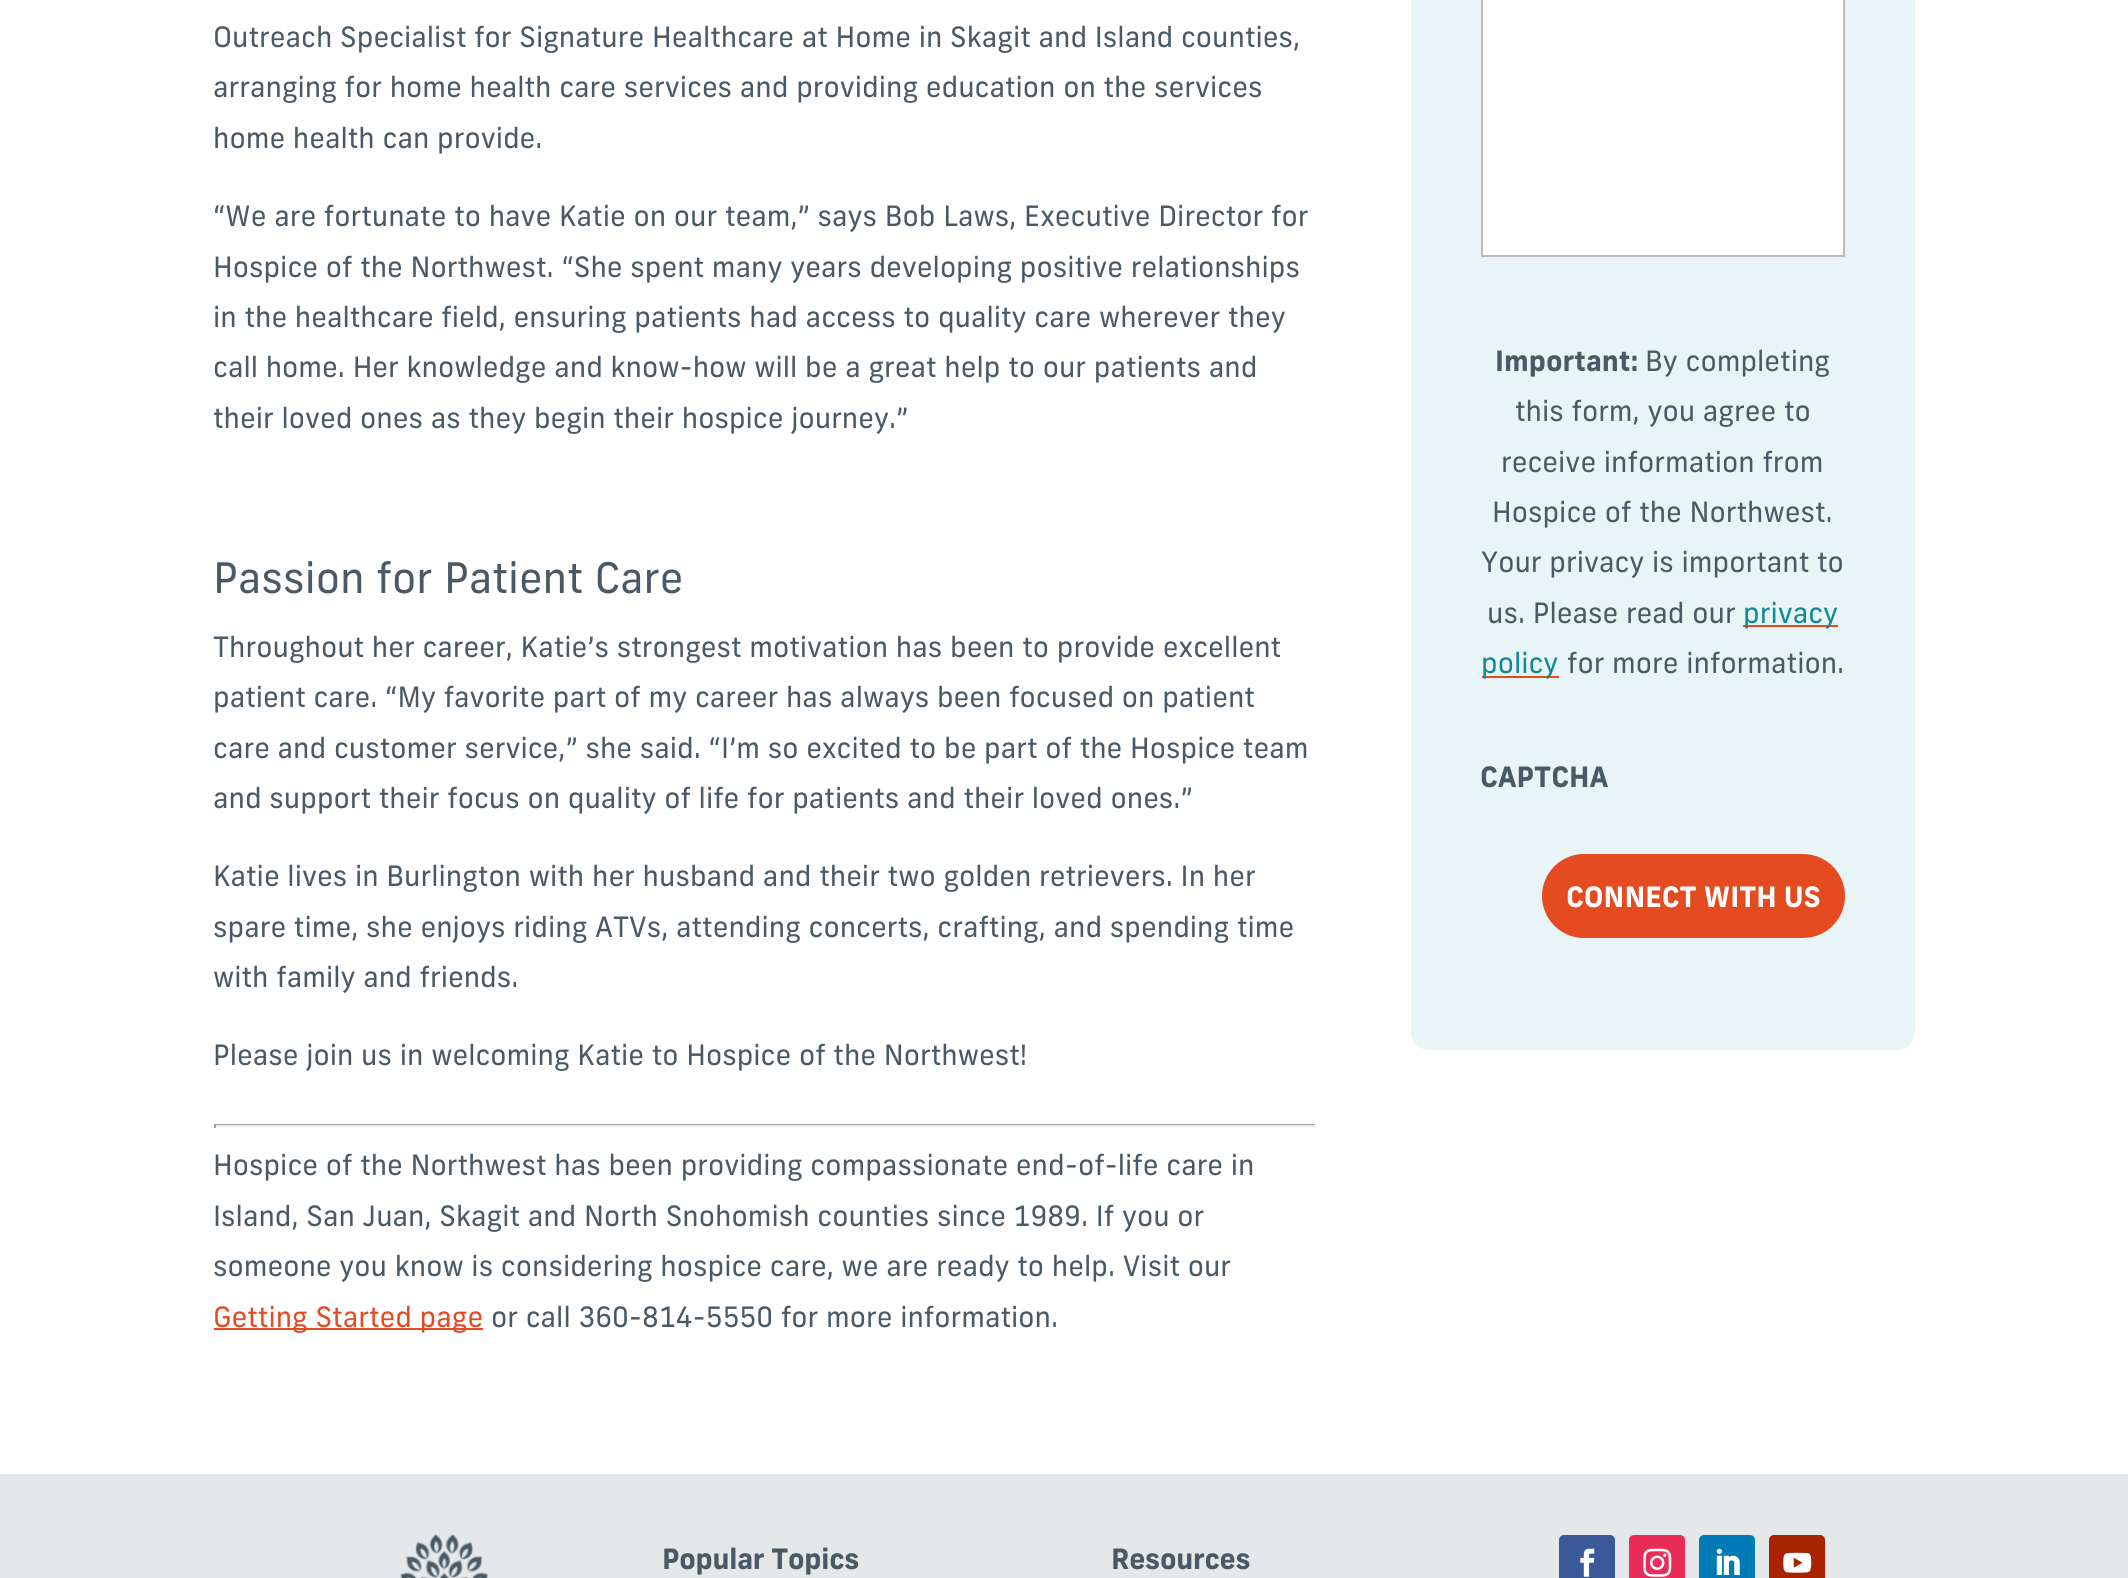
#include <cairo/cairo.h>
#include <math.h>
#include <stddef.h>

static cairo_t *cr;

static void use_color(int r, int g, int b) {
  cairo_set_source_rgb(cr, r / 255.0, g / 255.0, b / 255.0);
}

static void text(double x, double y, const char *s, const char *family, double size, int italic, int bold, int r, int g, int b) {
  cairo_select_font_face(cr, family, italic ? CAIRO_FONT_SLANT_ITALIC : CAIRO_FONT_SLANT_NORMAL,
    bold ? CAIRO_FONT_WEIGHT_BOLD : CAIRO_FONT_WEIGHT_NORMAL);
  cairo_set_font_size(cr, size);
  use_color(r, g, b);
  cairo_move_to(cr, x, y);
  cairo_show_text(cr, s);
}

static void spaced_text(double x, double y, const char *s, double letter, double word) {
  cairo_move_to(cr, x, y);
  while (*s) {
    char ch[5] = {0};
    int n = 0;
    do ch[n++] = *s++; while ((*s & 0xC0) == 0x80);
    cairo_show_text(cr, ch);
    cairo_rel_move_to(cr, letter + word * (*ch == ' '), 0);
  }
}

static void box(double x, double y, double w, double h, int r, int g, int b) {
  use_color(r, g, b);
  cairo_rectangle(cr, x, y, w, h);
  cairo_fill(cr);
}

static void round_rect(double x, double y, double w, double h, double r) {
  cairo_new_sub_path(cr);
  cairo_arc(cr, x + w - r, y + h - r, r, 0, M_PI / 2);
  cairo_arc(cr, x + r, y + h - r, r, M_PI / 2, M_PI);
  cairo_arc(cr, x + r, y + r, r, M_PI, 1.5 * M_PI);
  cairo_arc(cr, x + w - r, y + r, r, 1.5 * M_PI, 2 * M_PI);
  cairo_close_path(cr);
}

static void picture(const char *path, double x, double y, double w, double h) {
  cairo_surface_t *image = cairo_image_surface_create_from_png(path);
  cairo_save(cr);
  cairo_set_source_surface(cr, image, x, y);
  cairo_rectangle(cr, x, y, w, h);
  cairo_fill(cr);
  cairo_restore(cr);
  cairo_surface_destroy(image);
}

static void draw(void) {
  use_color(255, 255, 255);
  cairo_paint(cr);
  box(214, 1124, 1102, 1, 159, 159, 159);
  box(1314, 1124, 2, 4, 238, 238, 238);
  box(214, 1125, 1102, 2, 238, 238, 238);
  box(214, 1124, 2, 4, 159, 159, 159);
  box(214, 1328, 269, 2, 229, 75, 33);
  use_color(232, 244, 246);
  round_rect(1411, -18, 504, 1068, 18);
  cairo_fill(cr);
  use_color(255, 255, 255);
  cairo_rectangle(cr, 1482, -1, 362, 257);
  cairo_fill_preserve(cr);
  use_color(187, 187, 187);
  cairo_stroke(cr);
  box(1743, 625, 95, 2, 229, 75, 33);
  box(1482, 676, 77, 2, 229, 75, 33);
  round_rect(1542, 854, 303, 84, 42);
  cairo_fill(cr);
  box(0, 1474, 2128, 104, 229, 232, 233);
  picture("img_01.png", 399, 1534, 90, 44);
  use_color(59, 89, 152);
  round_rect(1559, 1535, 56, 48, 5);
  cairo_fill(cr);
  picture("img_02.png", 1580, 1548, 15, 29);
  use_color(234, 44, 89);
  round_rect(1629, 1535, 56, 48, 5);
  cairo_fill(cr);
  picture("img_03.png", 1643, 1548, 29, 29);
  use_color(0, 123, 182);
  round_rect(1699, 1535, 56, 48, 5);
  cairo_fill(cr);
  picture("img_04.png", 1716, 1548, 24, 27);
  use_color(168, 36, 0);
  round_rect(1769, 1535, 56, 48, 5);
  cairo_fill(cr);
  picture("img_05.png", 1783, 1552, 29, 21);
  text(213, 47, "Outreach Specialist for Signature Healthcare at Home in Skagit and Island counties,", "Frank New", 28, 0, 0, 73, 89, 101);
  text(213, 97, "arranging for home health care services and providing education on the services", "Frank New", 28, 0, 0, 73, 89, 101);
  text(213, 148, "home health can provide.", "Frank New", 28, 0, 0, 73, 89, 101);
  text(213, 226, "“We are fortunate to have Katie on our team,” says Bob Laws, Executive Director for", "Frank New", 28, 0, 0, 73, 89, 101);
  text(213, 277, "Hospice of the Northwest. “She spent many years developing positive relationships", "Frank New", 28, 0, 0, 73, 89, 101);
  text(213, 327, "in the healthcare field, ensuring patients had access to quality care wherever they", "Frank New", 28, 0, 0, 73, 89, 101);
  text(213, 377, "call home. Her knowledge and know-how will be a great help to our patients and", "Frank New", 28, 0, 0, 73, 89, 101);
  text(213, 428, "their loved ones as they begin their hospice journey.”", "Frank New", 28, 0, 0, 73, 89, 101);
  text(213, 593, "Passion for Patient Care", "Frank New", 42, 0, 0, 73, 89, 101);
  text(213, 657, "Throughout her career, Katie’s strongest motivation has been to provide excellent", "Frank New", 28, 0, 0, 73, 89, 101);
  text(213, 707, "patient care. “My favorite part of my career has always been focused on patient", "Frank New", 28, 0, 0, 73, 89, 101);
  text(213, 758, "care and customer service,” she said. “I’m so excited to be part of the Hospice team", "Frank New", 28, 0, 0, 73, 89, 101);
  text(213, 808, "and support their focus on quality of life for patients and their loved ones.”", "Frank New", 28, 0, 0, 73, 89, 101);
  text(213, 886, "Katie lives in Burlington with her husband and their two golden retrievers. In her", "Frank New", 28, 0, 0, 73, 89, 101);
  text(213, 937, "spare time, she enjoys riding ATVs, attending concerts, crafting, and spending time", "Frank New", 28, 0, 0, 73, 89, 101);
  text(213, 987, "with family and friends.", "Frank New", 28, 0, 0, 73, 89, 101);
  text(213, 1065, "Please join us in welcoming Katie to Hospice of the Northwest!", "Frank New", 28, 0, 0, 73, 89, 101);
  text(213, 1175, "Hospice of the Northwest has been providing compassionate end-of-life care in", "Frank New", 28, 0, 0, 73, 89, 101);
  text(213, 1226, "Island, San Juan, Skagit and North Snohomish counties since 1989. If you or", "Frank New", 28, 0, 0, 73, 89, 101);
  text(213, 1276, "someone you know is considering hospice care, we are ready to help. Visit our", "Frank New", 28, 0, 0, 73, 89, 101);
  text(213, 1327, "Getting Started page", "Frank New", 28, 0, 0, 229, 75, 33);
  text(491, 1327, "or call 360-814-5550 for more information.", "Frank New", 28, 0, 0, 73, 89, 101);
  text(1495, 371, "Important:", "Frank New", 28, 0, 1, 73, 89, 101);
  text(1645, 371, "By completing", "Frank New", 28, 0, 0, 73, 89, 101);
  text(1515, 421, "this form, you agree to", "Frank New", 28, 0, 0, 73, 89, 101);
  text(1501, 472, "receive information from", "Frank New", 28, 0, 0, 73, 89, 101);
  text(1492, 522, "Hospice of the Northwest.", "Frank New", 28, 0, 0, 73, 89, 101);
  text(1481, 572, "Your privacy is important to", "Frank New", 28, 0, 0, 73, 89, 101);
  text(1487, 623, "us. Please read our", "Frank New", 28, 0, 0, 73, 89, 101);
  text(1743, 623, "privacy", "Frank New", 28, 0, 0, 15, 137, 152);
  text(1481, 673, "policy", "Frank New", 28, 0, 0, 15, 137, 152);
  text(1567, 673, "for more information.", "Frank New", 28, 0, 0, 73, 89, 101);
  text(1480, 787, "CAPTCHA", "Frank New", 28, 0, 1, 73, 89, 101);
  text(1566, 907, "CONNECT WITH US", "Frank New", 28, 0, 1, 255, 255, 255);
  use_color(73, 89, 101);
  spaced_text(662, 1569, "Popular Topics", -0.25, 0);
  spaced_text(1111, 1569, "Resources", -0.25, 0);
}

int main(void) {
  cairo_surface_t *surface = cairo_image_surface_create(CAIRO_FORMAT_RGB24, 2128, 1578);
  cr = cairo_create(surface);
  cairo_font_options_t *options = cairo_font_options_create();
  cairo_font_options_set_hint_metrics(options, CAIRO_HINT_METRICS_OFF);
  cairo_font_options_set_hint_style(options, CAIRO_HINT_STYLE_NONE);
  cairo_set_font_options(cr, options);
  cairo_set_miter_limit(cr, 4);
  draw();
  cairo_surface_write_to_png(surface, "out.png");
  cairo_font_options_destroy(options);
  cairo_destroy(cr);
  cairo_surface_destroy(surface);
  return 0;
}
